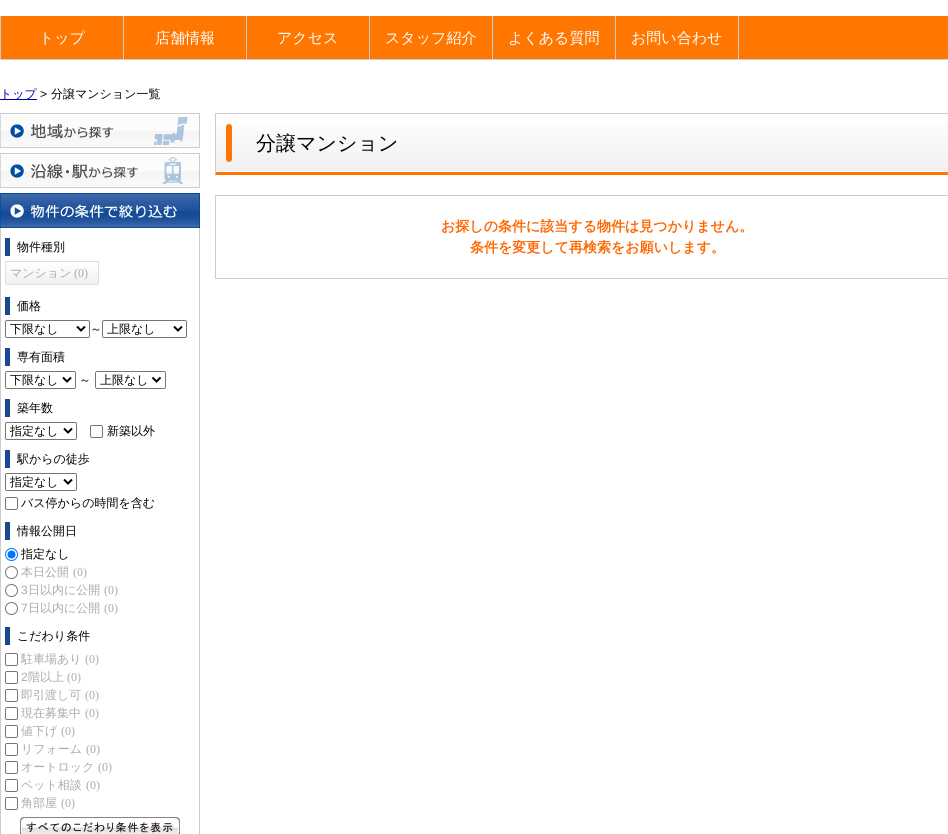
#include <cairo/cairo.h>
#include <math.h>
#include <stddef.h>

static cairo_t *cr;

static void use_color(int r, int g, int b) {
  cairo_set_source_rgb(cr, r / 255.0, g / 255.0, b / 255.0);
}

static void text(double x, double y, const char *s, const char *family, double size, int italic, int bold, int r, int g, int b) {
  cairo_select_font_face(cr, family, italic ? CAIRO_FONT_SLANT_ITALIC : CAIRO_FONT_SLANT_NORMAL,
    bold ? CAIRO_FONT_WEIGHT_BOLD : CAIRO_FONT_WEIGHT_NORMAL);
  cairo_set_font_size(cr, size);
  use_color(r, g, b);
  cairo_move_to(cr, x, y);
  cairo_show_text(cr, s);
}

static void box(double x, double y, double w, double h, int r, int g, int b) {
  use_color(r, g, b);
  cairo_rectangle(cr, x, y, w, h);
  cairo_fill(cr);
}

static void round_rect(double x, double y, double w, double h, double r) {
  cairo_new_sub_path(cr);
  cairo_arc(cr, x + w - r, y + h - r, r, 0, M_PI / 2);
  cairo_arc(cr, x + r, y + h - r, r, M_PI / 2, M_PI);
  cairo_arc(cr, x + r, y + r, r, M_PI, 1.5 * M_PI);
  cairo_arc(cr, x + w - r, y + r, r, 1.5 * M_PI, 2 * M_PI);
  cairo_close_path(cr);
}

static void picture(const char *path, double x, double y, double w, double h) {
  cairo_surface_t *image = cairo_image_surface_create_from_png(path);
  cairo_save(cr);
  cairo_set_source_surface(cr, image, x, y);
  cairo_rectangle(cr, x, y, w, h);
  cairo_fill(cr);
  cairo_restore(cr);
  cairo_surface_destroy(image);
}

static void draw(void) {
  cairo_pattern_t *gradient;
  use_color(255, 255, 255);
  cairo_paint(cr);
  box(1, 16, 947, 43, 255, 119, 0);
  box(0, 59, 948, 1, 204, 204, 204);
  box(123, 16, 1, 43, 204, 204, 204);
  box(0, 16, 1, 43, 204, 204, 204);
  box(246, 16, 1, 43, 204, 204, 204);
  box(369, 16, 1, 43, 204, 204, 204);
  box(492, 16, 1, 43, 204, 204, 204);
  box(615, 16, 1, 43, 204, 204, 204);
  box(738, 16, 1, 43, 204, 204, 204);
  box(0, 99, 37, 1, 0, 0, 153);
  gradient = cairo_pattern_create_linear(598, 114, 598, 172);
  cairo_pattern_add_color_stop_rgba(gradient, 0, 1, 1, 1, 1);
  cairo_pattern_add_color_stop_rgba(gradient, 1, 0.941, 0.941, 0.941, 1);
  cairo_set_source(cr, gradient);
  cairo_pattern_destroy(gradient);
  cairo_rectangle(cr, 216, 124, 732, 47);
  cairo_fill(cr);
  box(215, 113, 733, 1, 204, 204, 204);
  use_color(255, 119, 0);
  cairo_new_path(cr);
  cairo_move_to(cr, 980, 175);
  cairo_line_to(cr, 215, 175);
  cairo_line_to(cr, 216, 172);
  cairo_line_to(cr, 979, 172);
  cairo_close_path(cr);
  cairo_fill(cr);
  use_color(204, 204, 204);
  cairo_new_path(cr);
  cairo_move_to(cr, 215, 175);
  cairo_line_to(cr, 215, 113);
  cairo_line_to(cr, 216, 114);
  cairo_line_to(cr, 216, 172);
  cairo_close_path(cr);
  cairo_fill(cr);
  use_color(255, 119, 0);
  round_rect(226, 124, 6, 38, 3);
  cairo_fill(cr);
  cairo_rectangle(cr, 215.5, 195.5, 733, 83);
  use_color(204, 204, 204);
  cairo_set_line_width(cr, 1);
  cairo_stroke(cr);
  picture("img_01.png", 0, 113, 200, 35);
  picture("img_02.png", 0, 153, 200, 35);
  picture("img_03.png", 0, 193, 200, 35);
  box(199, 228, 1, 606, 204, 204, 204);
  box(0, 228, 1, 606, 204, 204, 204);
  box(5, 238, 5, 18, 24, 72, 142);
  picture("img_04.png", 5, 261, 94, 24);
  box(5, 297, 5, 18, 24, 72, 142);
  round_rect(5.5, 320.5, 84, 17, 1.5);
  use_color(118, 118, 118);
  cairo_stroke(cr);
  cairo_new_path(cr);
  cairo_move_to(cr, 77, 326.5);
  cairo_line_to(cr, 81, 330.5);
  cairo_line_to(cr, 85, 326.5);
  use_color(0, 0, 0);
  cairo_set_line_width(cr, 2);
  cairo_stroke(cr);
  round_rect(102.5, 320.5, 84, 17, 1.5);
  use_color(118, 118, 118);
  cairo_set_line_width(cr, 1);
  cairo_stroke(cr);
  cairo_new_path(cr);
  cairo_move_to(cr, 174, 326.5);
  cairo_line_to(cr, 178, 330.5);
  cairo_line_to(cr, 182, 326.5);
  use_color(0, 0, 0);
  cairo_set_line_width(cr, 2);
  cairo_stroke(cr);
  box(5, 348, 5, 18, 24, 72, 142);
  round_rect(5.5, 371.5, 70, 17, 1.5);
  use_color(118, 118, 118);
  cairo_set_line_width(cr, 1);
  cairo_stroke(cr);
  cairo_new_path(cr);
  cairo_move_to(cr, 63, 377.5);
  cairo_line_to(cr, 67, 381.5);
  cairo_line_to(cr, 71, 377.5);
  use_color(0, 0, 0);
  cairo_set_line_width(cr, 2);
  cairo_stroke(cr);
  round_rect(95.5, 371.5, 70, 17, 1.5);
  use_color(118, 118, 118);
  cairo_set_line_width(cr, 1);
  cairo_stroke(cr);
  cairo_new_path(cr);
  cairo_move_to(cr, 152.5, 377.5);
  cairo_line_to(cr, 156.5, 381.5);
  cairo_line_to(cr, 160.5, 377.5);
  use_color(0, 0, 0);
  cairo_set_line_width(cr, 2);
  cairo_stroke(cr);
  box(5, 399, 5, 18, 24, 72, 142);
  round_rect(5.5, 422.5, 71, 17, 1.5);
  use_color(118, 118, 118);
  cairo_set_line_width(cr, 1);
  cairo_stroke(cr);
  cairo_new_path(cr);
  cairo_move_to(cr, 64, 428.5);
  cairo_line_to(cr, 68, 432.5);
  cairo_line_to(cr, 72, 428.5);
  use_color(0, 0, 0);
  cairo_set_line_width(cr, 2);
  cairo_stroke(cr);
  round_rect(90.5, 425.5, 12, 12, 1.5);
  use_color(118, 118, 118);
  cairo_set_line_width(cr, 1);
  cairo_stroke(cr);
  box(5, 450, 5, 18, 24, 72, 142);
  round_rect(5.5, 473.5, 71, 17, 1.5);
  use_color(118, 118, 118);
  cairo_stroke(cr);
  cairo_new_path(cr);
  cairo_move_to(cr, 64, 479.5);
  cairo_line_to(cr, 68, 483.5);
  cairo_line_to(cr, 72, 479.5);
  use_color(0, 0, 0);
  cairo_set_line_width(cr, 2);
  cairo_stroke(cr);
  round_rect(5.5, 497.5, 12, 12, 1.5);
  use_color(118, 118, 118);
  cairo_set_line_width(cr, 1);
  cairo_stroke(cr);
  box(5, 522, 5, 18, 24, 72, 142);
  cairo_arc(cr, 11.5, 554.5, 6, 0, 2 * M_PI);
  use_color(0, 117, 255);
  cairo_stroke(cr);
  cairo_arc(cr, 11.5, 554.5, 4, 0, 2 * M_PI);
  cairo_fill(cr);
  cairo_arc(cr, 11.5, 572.5, 6, 0, 2 * M_PI);
  use_color(118, 118, 118);
  cairo_stroke(cr);
  cairo_arc(cr, 11.5, 590.5, 6, 0, 2 * M_PI);
  cairo_stroke(cr);
  cairo_arc(cr, 11.5, 608.5, 6, 0, 2 * M_PI);
  cairo_stroke(cr);
  box(5, 627, 5, 18, 24, 72, 142);
  round_rect(5.5, 653.5, 12, 12, 1.5);
  use_color(118, 118, 118);
  cairo_stroke(cr);
  round_rect(5.5, 671.5, 12, 12, 1.5);
  cairo_stroke(cr);
  round_rect(5.5, 689.5, 12, 12, 1.5);
  cairo_stroke(cr);
  round_rect(5.5, 707.5, 12, 12, 1.5);
  cairo_stroke(cr);
  round_rect(5.5, 725.5, 12, 12, 1.5);
  cairo_stroke(cr);
  round_rect(5.5, 743.5, 12, 12, 1.5);
  cairo_stroke(cr);
  round_rect(5.5, 761.5, 12, 12, 1.5);
  cairo_stroke(cr);
  round_rect(5.5, 779.5, 12, 12, 1.5);
  cairo_stroke(cr);
  round_rect(5.5, 797.5, 12, 12, 1.5);
  cairo_stroke(cr);
  picture("img_05.png", 20, 817, 160, 17);
  text(39, 43, "トップ", "WenQuanYi Zen Hei Medium", 15, 0, 0, 255, 255, 255);
  text(155, 43, "店舗情報", "WenQuanYi Zen Hei Medium", 15, 0, 0, 255, 255, 255);
  text(277, 43, "アクセス", "WenQuanYi Zen Hei Medium", 15, 0, 0, 255, 255, 255);
  text(385, 43, "スタッフ紹介", "WenQuanYi Zen Hei Medium", 15, 0, 0, 255, 255, 255);
  text(508, 43, "よくある質問", "WenQuanYi Zen Hei Medium", 15, 0, 0, 255, 255, 255);
  text(631, 43, "お問い合わせ", "WenQuanYi Zen Hei Medium", 15, 0, 0, 255, 255, 255);
  text(0, 98, "トップ", "WenQuanYi Zen Hei Medium", 12, 0, 0, 0, 0, 153);
  text(40, 98, ">", "Liberation Sans", 12, 0, 0, 0, 0, 0);
  text(51, 98, "分譲マンション一覧", "WenQuanYi Zen Hei Medium", 12, 0, 0, 0, 0, 0);
  text(256, 150, "分譲マンション", "WenQuanYi Zen Hei Medium", 20, 0, 0, 0, 0, 0);
  text(441, 231, "お探しの条件に該当する物件は見つかりません。", "WenQuanYi Zen Hei", 14, 0, 1, 255, 102, 0);
  text(470, 252, "条件を変更して再検索をお願いします。", "WenQuanYi Zen Hei", 14, 0, 1, 255, 102, 0);
  text(17, 251, "物件種別", "WenQuanYi Zen Hei Medium", 12, 0, 0, 0, 0, 0);
  text(10, 277, "マンション", "WenQuanYi Zen Hei Medium", 12, 0, 0, 170, 170, 170);
  text(74, 277, "(0)", "Liberation Serif", 12, 0, 0, 170, 170, 170);
  text(17, 310, "価格", "WenQuanYi Zen Hei Medium", 12, 0, 0, 0, 0, 0);
  text(10, 333, "下限なし", "WenQuanYi Zen Hei Medium", 12, 0, 0, 0, 0, 0);
  text(90, 333, "～", "WenQuanYi Zen Hei Medium", 12, 0, 0, 0, 0, 0);
  text(107, 333, "上限なし", "WenQuanYi Zen Hei Medium", 12, 0, 0, 0, 0, 0);
  text(17, 361, "専有面積", "WenQuanYi Zen Hei Medium", 12, 0, 0, 0, 0, 0);
  text(10, 384, "下限なし", "WenQuanYi Zen Hei Medium", 12, 0, 0, 0, 0, 0);
  text(79, 384, "～", "WenQuanYi Zen Hei Medium", 12, 0, 0, 0, 0, 0);
  text(100, 384, "上限なし", "WenQuanYi Zen Hei Medium", 12, 0, 0, 0, 0, 0);
  text(17, 412, "築年数", "WenQuanYi Zen Hei Medium", 12, 0, 0, 0, 0, 0);
  text(10, 435, "指定なし", "WenQuanYi Zen Hei Medium", 12, 0, 0, 0, 0, 0);
  text(107, 435, "新築以外", "WenQuanYi Zen Hei Medium", 12, 0, 0, 0, 0, 0);
  text(17, 463, "駅からの徒歩", "WenQuanYi Zen Hei Medium", 12, 0, 0, 0, 0, 0);
  text(10, 486, "指定なし", "WenQuanYi Zen Hei Medium", 12, 0, 0, 0, 0, 0);
  text(21, 507, "バス停からの時間を含む", "WenQuanYi Zen Hei Medium", 12, 0, 0, 0, 0, 0);
  text(17, 535, "情報公開日", "WenQuanYi Zen Hei Medium", 12, 0, 0, 0, 0, 0);
  text(21, 558, "指定なし", "WenQuanYi Zen Hei Medium", 12, 0, 0, 0, 0, 0);
  text(21, 576, "本日公開", "WenQuanYi Zen Hei Medium", 12, 0, 0, 170, 170, 170);
  text(73, 576, "(0)", "Liberation Serif", 12, 0, 0, 170, 170, 170);
  text(21, 594, "3", "Liberation Sans", 12, 0, 0, 170, 170, 170);
  text(28, 594, "日以内に公開", "WenQuanYi Zen Hei Medium", 12, 0, 0, 170, 170, 170);
  text(104, 594, "(0)", "Liberation Serif", 12, 0, 0, 170, 170, 170);
  text(21, 612, "7", "Liberation Sans", 12, 0, 0, 170, 170, 170);
  text(28, 612, "日以内に公開", "WenQuanYi Zen Hei Medium", 12, 0, 0, 170, 170, 170);
  text(104, 612, "(0)", "Liberation Serif", 12, 0, 0, 170, 170, 170);
  text(17, 640, "こだわり条件", "WenQuanYi Zen Hei Medium", 12, 0, 0, 0, 0, 0);
  text(21, 663, "駐車場あり", "WenQuanYi Zen Hei Medium", 12, 0, 0, 170, 170, 170);
  text(85, 663, "(0)", "Liberation Serif", 12, 0, 0, 170, 170, 170);
  text(21, 681, "2", "Liberation Sans", 12, 0, 0, 170, 170, 170);
  text(28, 681, "階以上", "WenQuanYi Zen Hei Medium", 12, 0, 0, 170, 170, 170);
  text(67, 681, "(0)", "Liberation Serif", 12, 0, 0, 170, 170, 170);
  text(21, 699, "即引渡し可", "WenQuanYi Zen Hei Medium", 12, 0, 0, 170, 170, 170);
  text(85, 699, "(0)", "Liberation Serif", 12, 0, 0, 170, 170, 170);
  text(21, 717, "現在募集中", "WenQuanYi Zen Hei Medium", 12, 0, 0, 170, 170, 170);
  text(85, 717, "(0)", "Liberation Serif", 12, 0, 0, 170, 170, 170);
  text(21, 735, "値下げ", "WenQuanYi Zen Hei Medium", 12, 0, 0, 170, 170, 170);
  text(61, 735, "(0)", "Liberation Serif", 12, 0, 0, 170, 170, 170);
  text(21, 753, "リフォーム", "WenQuanYi Zen Hei Medium", 12, 0, 0, 170, 170, 170);
  text(86, 753, "(0)", "Liberation Serif", 12, 0, 0, 170, 170, 170);
  text(21, 771, "オートロック", "WenQuanYi Zen Hei Medium", 12, 0, 0, 170, 170, 170);
  text(98, 771, "(0)", "Liberation Serif", 12, 0, 0, 170, 170, 170);
  text(21, 789, "ペット相談", "WenQuanYi Zen Hei Medium", 12, 0, 0, 170, 170, 170);
  text(86, 789, "(0)", "Liberation Serif", 12, 0, 0, 170, 170, 170);
  text(21, 807, "角部屋", "WenQuanYi Zen Hei Medium", 12, 0, 0, 170, 170, 170);
  text(61, 807, "(0)", "Liberation Serif", 12, 0, 0, 170, 170, 170);
}

int main(void) {
  cairo_surface_t *surface = cairo_image_surface_create(CAIRO_FORMAT_RGB24, 948, 834);
  cr = cairo_create(surface);
  cairo_font_options_t *options = cairo_font_options_create();
  cairo_font_options_set_hint_metrics(options, CAIRO_HINT_METRICS_OFF);
  cairo_font_options_set_hint_style(options, CAIRO_HINT_STYLE_NONE);
  cairo_set_font_options(cr, options);
  cairo_set_miter_limit(cr, 4);
  draw();
  cairo_surface_write_to_png(surface, "out.png");
  cairo_font_options_destroy(options);
  cairo_destroy(cr);
  cairo_surface_destroy(surface);
  return 0;
}
